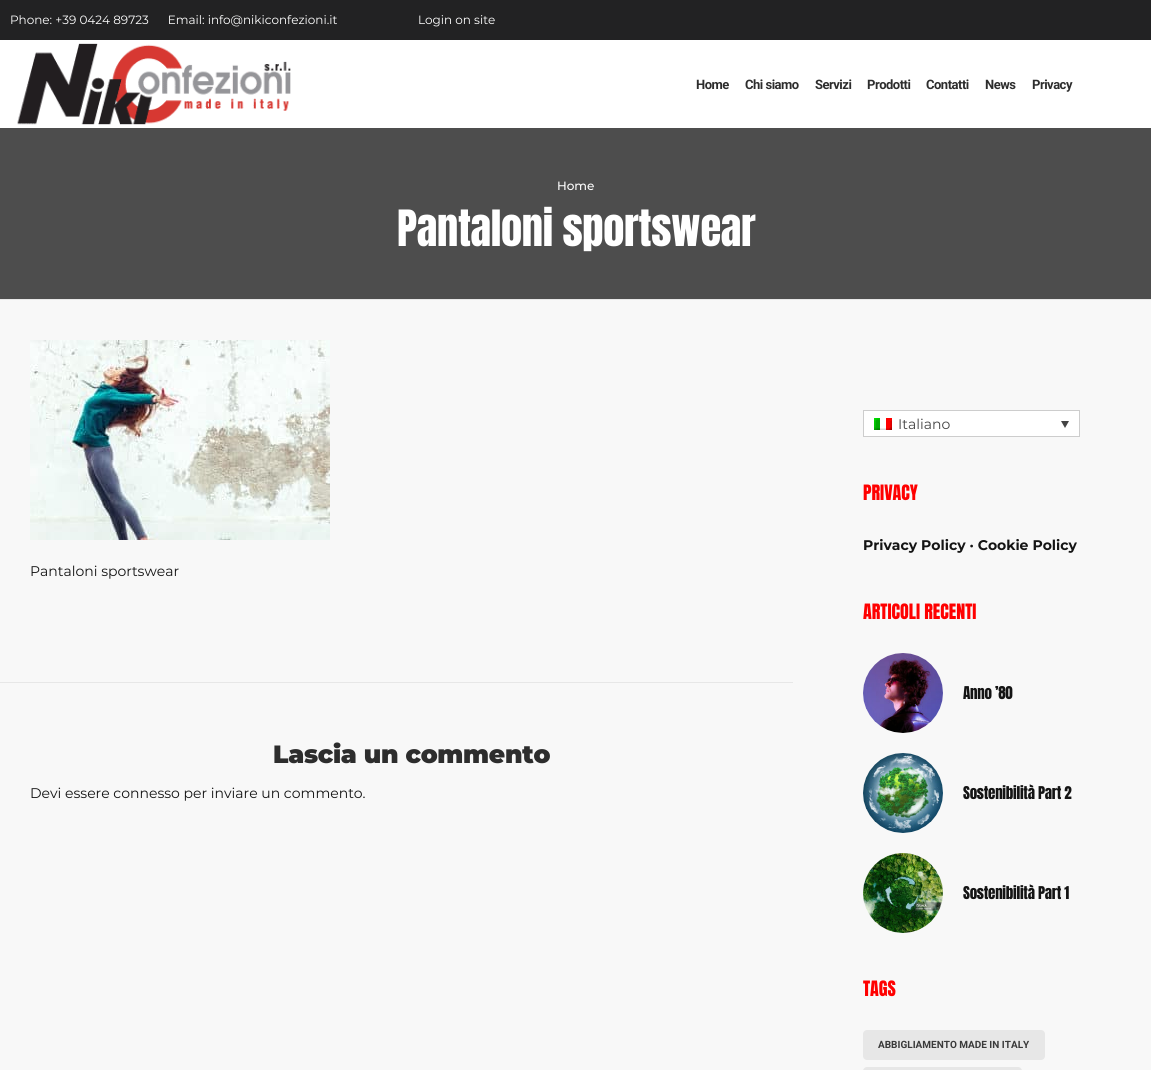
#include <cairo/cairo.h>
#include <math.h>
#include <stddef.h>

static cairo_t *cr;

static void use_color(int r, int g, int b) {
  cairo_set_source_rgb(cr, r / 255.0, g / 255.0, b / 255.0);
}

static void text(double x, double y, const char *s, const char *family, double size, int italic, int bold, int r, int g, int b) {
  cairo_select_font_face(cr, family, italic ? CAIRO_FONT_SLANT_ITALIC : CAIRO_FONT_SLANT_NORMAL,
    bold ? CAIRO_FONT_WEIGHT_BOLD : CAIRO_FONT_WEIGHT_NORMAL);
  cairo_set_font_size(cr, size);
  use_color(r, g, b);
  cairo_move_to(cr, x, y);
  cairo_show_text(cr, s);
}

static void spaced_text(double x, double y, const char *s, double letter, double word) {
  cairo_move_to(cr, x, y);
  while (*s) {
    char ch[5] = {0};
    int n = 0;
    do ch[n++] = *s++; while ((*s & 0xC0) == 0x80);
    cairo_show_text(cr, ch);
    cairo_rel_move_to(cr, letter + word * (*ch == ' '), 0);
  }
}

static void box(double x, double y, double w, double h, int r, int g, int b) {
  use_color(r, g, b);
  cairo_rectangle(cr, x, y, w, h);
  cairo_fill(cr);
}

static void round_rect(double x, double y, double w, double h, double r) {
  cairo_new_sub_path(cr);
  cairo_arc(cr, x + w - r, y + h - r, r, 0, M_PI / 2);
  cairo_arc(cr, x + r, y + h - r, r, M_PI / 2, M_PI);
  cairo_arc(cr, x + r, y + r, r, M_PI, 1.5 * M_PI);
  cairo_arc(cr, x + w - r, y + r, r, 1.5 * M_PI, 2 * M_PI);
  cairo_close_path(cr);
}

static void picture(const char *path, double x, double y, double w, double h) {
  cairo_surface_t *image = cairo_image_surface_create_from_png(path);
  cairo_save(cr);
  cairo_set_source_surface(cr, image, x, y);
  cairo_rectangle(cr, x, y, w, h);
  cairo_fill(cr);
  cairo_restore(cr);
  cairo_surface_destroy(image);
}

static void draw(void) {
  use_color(77, 77, 77);
  cairo_paint(cr);
  box(0, 0, 1151, 40, 34, 34, 35);
  box(0, 40, 1151, 88, 255, 255, 255);
  picture("img_01.png", 17, 43, 274, 82);
  box(0, 300, 1151, 770, 248, 248, 248);
  box(0, 299, 1151, 1, 231, 231, 231);
  picture("img_02.png", 30, 340, 300, 200);
  box(0, 682, 793, 1, 231, 231, 231);
  use_color(255, 255, 255);
  cairo_rectangle(cr, 863.5, 410.5, 216, 26);
  cairo_fill_preserve(cr);
  use_color(205, 205, 205);
  cairo_set_line_width(cr, 1);
  cairo_stroke(cr);
  picture("img_03.png", 874, 418, 18, 12);
  use_color(68, 68, 68);
  cairo_new_path(cr);
  cairo_move_to(cr, 1061, 421);
  cairo_line_to(cr, 1069, 421);
  cairo_line_to(cr, 1065, 428);
  cairo_close_path(cr);
  cairo_fill(cr);
  picture("img_04.png", 863, 653, 80, 80);
  picture("img_05.png", 863, 753, 80, 80);
  picture("img_06.png", 863, 853, 80, 80);
  use_color(231, 231, 231);
  round_rect(863, 1030, 182, 30, 4);
  cairo_fill(cr);
  round_rect(863, 1067, 159, 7, 4);
  cairo_fill(cr);
  text(10, 24, "Phone: +39 0424 89723      Email: info@nikiconfezioni.it", "Montserrat", 12, 0, 0, 255, 255, 255);
  text(418, 24, "Login on site", "Montserrat", 12, 0, 0, 255, 255, 255);
  cairo_select_font_face(cr, "Roboto", CAIRO_FONT_SLANT_NORMAL, CAIRO_FONT_WEIGHT_BOLD);
  cairo_set_font_size(cr, 13);
  use_color(45, 45, 45);
  spaced_text(696, 89, "Home", -0.5, 0);
  spaced_text(745, 89, "Chi siamo", -0.5, 0);
  spaced_text(815, 89, "Servizi", -0.5, 0);
  spaced_text(867, 89, "Prodotti", -0.5, 0);
  spaced_text(926, 89, "Contatti", -0.5, 0);
  spaced_text(985, 89, "News", -0.5, 0);
  spaced_text(1032, 89, "Privacy", -0.5, 0);
  text(557, 190, "Home", "Montserrat Medium", 12, 0, 0, 255, 255, 255);
  cairo_select_font_face(cr, "Anton", CAIRO_FONT_SLANT_NORMAL, CAIRO_FONT_WEIGHT_NORMAL);
  cairo_set_font_size(cr, 42.5);
  spaced_text(397, 246, "Pantaloni sportswear", -0.3, 0);
  text(30, 576, "Pantaloni sportswear", "Montserrat", 14, 0, 0, 20, 20, 20);
  cairo_select_font_face(cr, "Montserrat Black", CAIRO_FONT_SLANT_NORMAL, CAIRO_FONT_WEIGHT_NORMAL);
  cairo_set_font_size(cr, 25);
  use_color(45, 45, 45);
  spaced_text(273, 763, "Lascia un commento", -0.25, 0);
  text(30, 798, "Devi essere connesso per inviare un commento.", "Montserrat", 14, 0, 0, 20, 20, 20);
  text(898, 429, "Italiano", "Montserrat", 14, 0, 0, 68, 68, 68);
  text(863, 500, "PRIVACY", "Anton", 18, 0, 0, 255, 0, 0);
  text(863, 550, "Privacy Policy · Cookie Policy", "Montserrat", 14, 0, 1, 20, 20, 20);
  text(863, 619, "ARTICOLI RECENTI", "Anton", 18, 0, 0, 255, 0, 0);
  cairo_set_font_size(cr, 15);
  use_color(20, 20, 20);
  spaced_text(963, 699, "Anno ’80", -0.25, 0);
  spaced_text(963, 799, "Sostenibilità Part 2", -0.25, 0);
  spaced_text(963, 899, "Sostenibilità Part 1", -0.25, 0);
  text(863, 996, "TAGS", "Anton", 18, 0, 0, 255, 0, 0);
  text(878, 1048, "ABBIGLIAMENTO MADE IN ITALY", "Roboto", 10, 0, 1, 58, 58, 58);
}

int main(void) {
  cairo_surface_t *surface = cairo_image_surface_create(CAIRO_FORMAT_RGB24, 1151, 1070);
  cr = cairo_create(surface);
  cairo_font_options_t *options = cairo_font_options_create();
  cairo_font_options_set_hint_metrics(options, CAIRO_HINT_METRICS_OFF);
  cairo_font_options_set_hint_style(options, CAIRO_HINT_STYLE_NONE);
  cairo_set_font_options(cr, options);
  cairo_set_miter_limit(cr, 4);
  draw();
  cairo_surface_write_to_png(surface, "out.png");
  cairo_font_options_destroy(options);
  cairo_destroy(cr);
  cairo_surface_destroy(surface);
  return 0;
}
